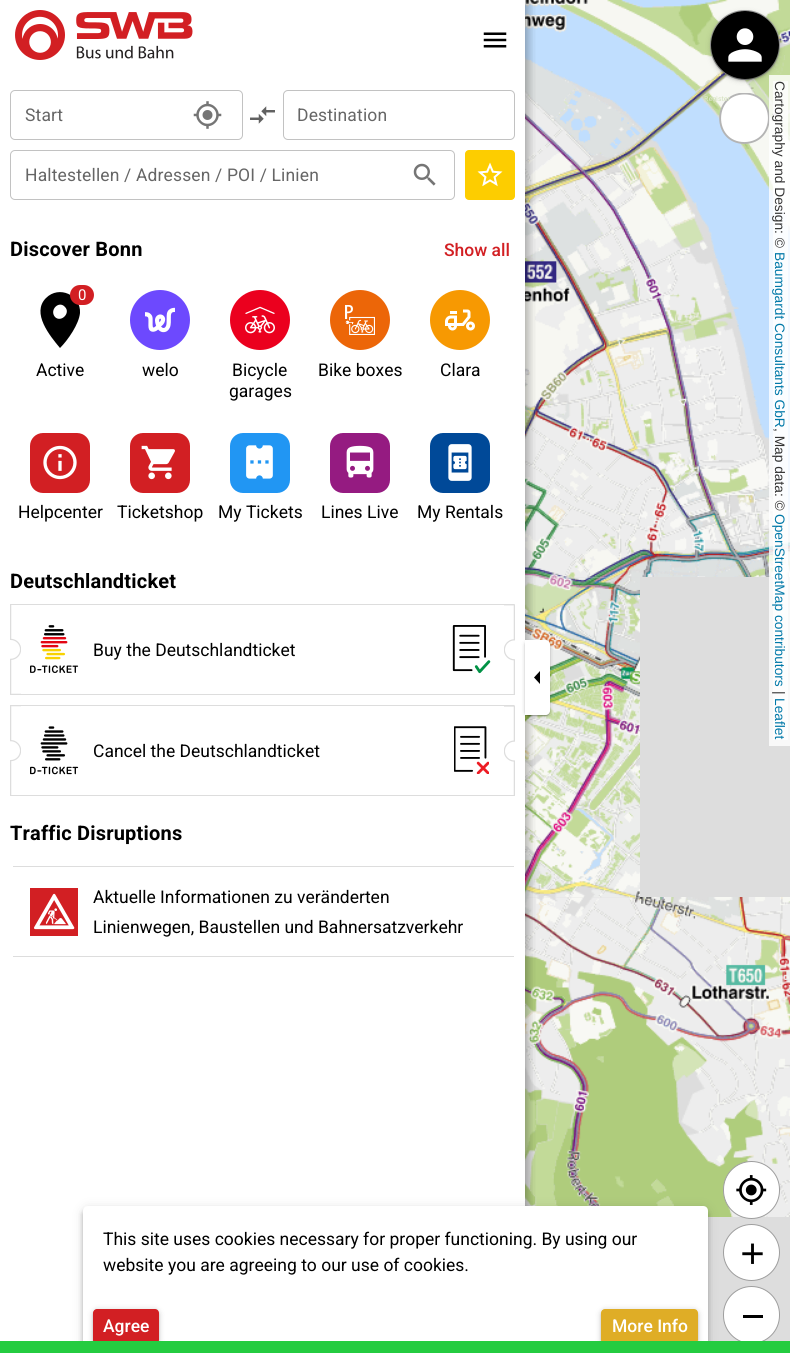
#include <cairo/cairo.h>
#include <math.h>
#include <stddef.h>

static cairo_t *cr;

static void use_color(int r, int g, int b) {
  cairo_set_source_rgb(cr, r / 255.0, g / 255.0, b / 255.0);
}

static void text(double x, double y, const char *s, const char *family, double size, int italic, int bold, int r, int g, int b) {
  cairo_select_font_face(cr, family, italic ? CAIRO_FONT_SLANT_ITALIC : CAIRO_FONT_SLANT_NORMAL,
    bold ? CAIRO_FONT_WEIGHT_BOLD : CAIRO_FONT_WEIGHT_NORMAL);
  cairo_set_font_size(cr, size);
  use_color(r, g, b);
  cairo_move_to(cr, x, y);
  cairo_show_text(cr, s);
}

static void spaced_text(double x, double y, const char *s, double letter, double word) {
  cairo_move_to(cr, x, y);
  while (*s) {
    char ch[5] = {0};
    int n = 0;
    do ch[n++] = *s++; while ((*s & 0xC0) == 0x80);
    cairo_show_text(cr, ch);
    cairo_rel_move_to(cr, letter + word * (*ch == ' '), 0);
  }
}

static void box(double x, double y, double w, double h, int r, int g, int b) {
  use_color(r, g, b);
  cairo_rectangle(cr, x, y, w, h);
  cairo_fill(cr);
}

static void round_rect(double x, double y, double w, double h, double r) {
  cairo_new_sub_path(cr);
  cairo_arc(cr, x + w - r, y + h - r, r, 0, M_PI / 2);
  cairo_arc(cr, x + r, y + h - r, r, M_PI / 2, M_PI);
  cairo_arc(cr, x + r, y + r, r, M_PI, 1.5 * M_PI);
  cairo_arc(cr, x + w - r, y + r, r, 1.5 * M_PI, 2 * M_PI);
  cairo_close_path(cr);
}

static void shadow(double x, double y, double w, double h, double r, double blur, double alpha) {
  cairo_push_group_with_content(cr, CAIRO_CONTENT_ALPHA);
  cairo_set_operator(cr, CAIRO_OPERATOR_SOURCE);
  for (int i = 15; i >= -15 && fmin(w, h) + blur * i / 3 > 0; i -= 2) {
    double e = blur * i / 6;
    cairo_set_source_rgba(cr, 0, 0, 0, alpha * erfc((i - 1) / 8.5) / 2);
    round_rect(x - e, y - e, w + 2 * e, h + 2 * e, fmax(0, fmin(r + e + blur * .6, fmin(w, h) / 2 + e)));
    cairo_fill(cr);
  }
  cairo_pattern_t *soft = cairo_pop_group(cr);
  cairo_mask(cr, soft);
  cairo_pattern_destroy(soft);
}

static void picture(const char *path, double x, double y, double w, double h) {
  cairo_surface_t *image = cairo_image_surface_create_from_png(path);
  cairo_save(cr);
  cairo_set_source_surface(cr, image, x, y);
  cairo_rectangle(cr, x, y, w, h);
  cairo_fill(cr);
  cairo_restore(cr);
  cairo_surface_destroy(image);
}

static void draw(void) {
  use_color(221, 221, 221);
  cairo_paint(cr);
  box(0, 0, 525, 1341, 255, 255, 255);
  picture("img_01.png", 15, 10, 178, 50);
  picture("img_02.png", 483, 32, 24, 16);
  round_rect(10.5, 90.5, 232, 49, 4.5);
  use_color(194, 194, 194);
  cairo_set_line_width(cr, 1);
  cairo_stroke(cr);
  picture("img_03.png", 193, 101, 29, 28);
  picture("img_04.png", 250, 106, 25, 18);
  round_rect(283.5, 90.5, 231, 49, 4.5);
  cairo_stroke(cr);
  round_rect(10.5, 150.5, 444, 49, 4.5);
  cairo_stroke(cr);
  picture("img_05.png", 413, 163, 23, 23);
  use_color(253, 205, 0);
  round_rect(465, 150, 50, 50, 4);
  cairo_fill(cr);
  picture("img_06.png", 477, 162, 26, 25);
  use_color(0, 0, 0);
  cairo_new_path(cr);
  cairo_move_to(cr, 55, 317);
  cairo_curve_to(cr, 61, 323, 71, 313, 65, 307);
  cairo_curve_to(cr, 59, 300, 49, 310, 55, 317);
  cairo_close_path(cr);
  cairo_move_to(cr, 46, 298);
  cairo_curve_to(cr, 59, 285, 81, 295, 80, 313);
  cairo_curve_to(cr, 79, 324, 68, 340, 60, 348);
  cairo_curve_to(cr, 50, 336, 31, 313, 46, 298);
  cairo_close_path(cr);
  cairo_fill(cr);
  use_color(210, 31, 35);
  round_rect(70, 285, 24, 20, 10);
  cairo_fill(cr);
  use_color(109, 73, 254);
  cairo_arc(cr, 160, 320, 30, 0, 2 * M_PI);
  cairo_fill(cr);
  picture("img_07.png", 145, 307, 30, 26);
  use_color(235, 0, 30);
  cairo_arc(cr, 260, 320, 30, 0, 2 * M_PI);
  cairo_fill(cr);
  picture("img_08.png", 245, 306, 30, 28);
  use_color(236, 102, 8);
  cairo_arc(cr, 360, 320, 30, 0, 2 * M_PI);
  cairo_fill(cr);
  picture("img_09.png", 345, 305, 30, 30);
  use_color(247, 153, 2);
  cairo_arc(cr, 460, 320, 30, 0, 2 * M_PI);
  cairo_fill(cr);
  picture("img_10.png", 445, 309, 30, 22);
  use_color(210, 31, 35);
  round_rect(30, 433, 60, 60, 13);
  cairo_fill(cr);
  picture("img_11.png", 43, 445, 34, 35);
  round_rect(130, 433, 60, 60, 13);
  cairo_fill(cr);
  picture("img_12.png", 141, 445, 34, 35);
  use_color(33, 150, 243);
  round_rect(230, 433, 60, 60, 13);
  cairo_fill(cr);
  picture("img_13.png", 246, 445, 27, 34);
  use_color(149, 27, 129);
  round_rect(330, 433, 60, 60, 13);
  cairo_fill(cr);
  picture("img_14.png", 346, 445, 28, 33);
  use_color(0, 73, 152);
  round_rect(430, 433, 60, 60, 13);
  cairo_fill(cr);
  picture("img_15.png", 448, 444, 24, 37);
  picture("img_19.png", 504, 604, 11, 91);
  box(13, 604, 501, 1, 221, 221, 221);
  box(13, 694, 501, 1, 221, 221, 221);
  picture("img_16.png", 10, 604, 11, 91);
  picture("img_17.png", 30, 625, 49, 48);
  picture("img_18.png", 452, 625, 39, 49);
  picture("img_23.png", 504, 705, 11, 91);
  box(13, 705, 501, 1, 221, 221, 221);
  box(13, 795, 501, 1, 221, 221, 221);
  picture("img_20.png", 10, 705, 11, 91);
  picture("img_21.png", 30, 726, 49, 49);
  picture("img_22.png", 454, 726, 35, 48);
  box(13, 866, 501, 1, 221, 221, 221);
  box(13, 956, 501, 1, 221, 221, 221);
  picture("img_24.png", 30, 888, 48, 48);
  picture("img_30.png", 525, 577, 115, 321);
  picture("img_28.png", 525, 257, 115, 321);
  picture("img_26.png", 525, 0, 115, 258);
  picture("img_31.png", 525, 897, 115, 309);
  cairo_save(cr);
  cairo_rectangle(cr, 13, 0, 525, 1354);
  cairo_clip(cr);
  cairo_rectangle(cr, 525, 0, 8, 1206);
  cairo_clip(cr);
  use_color(0, 0, 0);
  shadow(13, 0, 512, 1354, 0, 6, 0.24);
  cairo_restore(cr);
  cairo_save(cr);
  cairo_rectangle(cr, 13, 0, 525, 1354);
  cairo_clip(cr);
  cairo_rectangle(cr, 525, 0, 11, 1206);
  cairo_clip(cr);
  use_color(0, 0, 0);
  shadow(10, -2, 518, 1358, 0, 6, 0.2);
  cairo_restore(cr);
  use_color(0, 0, 0);
  shadow(526, 644, 23, 72, 2.5, 0.5, 0.12);
  shadow(525, 641, 25, 75, 4, 0.5, 0.14);
  shadow(525, 641, 25, 75, 4, 2, 0.2);
  use_color(255, 255, 255);
  cairo_new_path(cr);
  cairo_move_to(cr, 525, 640);
  cairo_line_to(cr, 546, 640);
  cairo_curve_to(cr, 548, 640, 550, 642, 550, 644);
  cairo_line_to(cr, 550, 711);
  cairo_curve_to(cr, 550, 713, 548, 715, 546, 715);
  cairo_line_to(cr, 525, 715);
  cairo_close_path(cr);
  cairo_fill(cr);
  use_color(0, 0, 0);
  cairo_new_path(cr);
  cairo_move_to(cr, 540, 671);
  cairo_line_to(cr, 540, 684);
  cairo_line_to(cr, 534, 677.5);
  cairo_close_path(cr);
  cairo_fill(cr);
  picture("img_29.png", 640, 257, 150, 320);
  picture("img_27.png", 640, 0, 150, 258);
  cairo_arc(cr, 745, 45, 34.5, 0, 2 * M_PI);
  use_color(158, 158, 158);
  cairo_stroke(cr);
  use_color(0, 0, 0);
  shadow(714, 18, 62, 62, 31, 0.5, 0.12);
  shadow(711, 14, 68, 67, 33.5, 1, 0.14);
  shadow(711, 13, 68, 67, 33.5, 3, 0.2);
  use_color(0, 0, 0);
  cairo_arc(cr, 745, 45, 34, 0, 2 * M_PI);
  cairo_fill(cr);
  picture("img_25.png", 728, 28, 34, 34);
  use_color(255, 255, 255);
  cairo_new_path(cr);
  cairo_move_to(cr, 744, 93);
  cairo_curve_to(cr, 777, 93, 777, 143, 744, 143);
  cairo_curve_to(cr, 712, 143, 712, 93, 744, 93);
  cairo_close_path(cr);
  cairo_fill(cr);
  cairo_save(cr);
  cairo_rectangle(cr, 719, 93, 51, 51);
  cairo_clip(cr);
  cairo_new_path(cr);
  cairo_move_to(cr, 744.5, 93.5);
  cairo_curve_to(cr, 777, 93.5, 777, 142.5, 744.5, 143);
  cairo_curve_to(cr, 712, 143, 712, 93.5, 744.5, 93.5);
  cairo_close_path(cr);
  use_color(180, 180, 180);
  cairo_set_line_width(cr, 1.9);
  cairo_stroke(cr);
  cairo_restore(cr);
  picture("img_32.png", 640, 897, 150, 320);
  cairo_set_source_rgba(cr, 1, 1, 1, 0.8);
  cairo_rectangle(cr, 769, 75, 21, 671);
  cairo_fill(cr);
  cairo_set_source_rgba(cr, 1, 1, 1, 0.7);
  cairo_rectangle(cr, 773, 81, 15, 171);
  cairo_fill(cr);
  box(773, 252, 15, 176, 251, 253, 255);
  cairo_set_source_rgba(cr, 1, 1, 1, 0.7);
  cairo_rectangle(cr, 773, 428, 15, 86);
  cairo_fill(cr);
  cairo_rectangle(cr, 773, 514, 15, 173);
  cairo_fill(cr);
  box(773, 687, 15, 53, 253, 253, 253);
  use_color(255, 255, 255);
  round_rect(723.5, 1161.5, 56, 57, 28);
  cairo_fill_preserve(cr);
  use_color(158, 158, 158);
  cairo_stroke(cr);
  picture("img_33.png", 736, 1175, 31, 30);
  use_color(255, 255, 255);
  cairo_arc(cr, 751.5, 1252.5, 28, 0, 2 * M_PI);
  cairo_fill_preserve(cr);
  use_color(158, 158, 158);
  cairo_stroke(cr);
  picture("img_34.png", 742, 1243, 21, 21);
  use_color(255, 255, 255);
  round_rect(723.5, 1286.5, 56, 57, 28);
  cairo_fill_preserve(cr);
  use_color(158, 158, 158);
  cairo_stroke(cr);
  box(743, 1315, 20, 3, 0, 0, 0);
  use_color(0, 0, 0);
  shadow(83, 1208, 625, 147, 5, 6, 0.12);
  shadow(83, 1211, 625, 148, 5, 3, 0.14);
  shadow(84, 1210, 622, 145, 4, 2.5, 0.2);
  use_color(255, 255, 255);
  cairo_new_path(cr);
  cairo_move_to(cr, 88, 1206);
  cairo_line_to(cr, 703, 1206);
  cairo_curve_to(cr, 706, 1206, 708, 1208, 708, 1211);
  cairo_line_to(cr, 708, 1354);
  cairo_line_to(cr, 83, 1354);
  cairo_line_to(cr, 83, 1211);
  cairo_curve_to(cr, 83, 1208, 85, 1206, 88, 1206);
  cairo_close_path(cr);
  cairo_fill(cr);
  use_color(210, 31, 35);
  round_rect(93, 1309, 66, 35, 4);
  cairo_fill(cr);
  cairo_save(cr);
  cairo_set_fill_rule(cr, CAIRO_FILL_RULE_EVEN_ODD);
  cairo_new_path(cr);
  cairo_move_to(cr, 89, 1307);
  cairo_line_to(cr, 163, 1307);
  cairo_line_to(cr, 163, 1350);
  cairo_line_to(cr, 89, 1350);
  cairo_close_path(cr);
  cairo_move_to(cr, 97, 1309);
  cairo_line_to(cr, 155, 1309);
  cairo_curve_to(cr, 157, 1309, 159, 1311, 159, 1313);
  cairo_line_to(cr, 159, 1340);
  cairo_curve_to(cr, 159, 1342, 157, 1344, 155, 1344);
  cairo_line_to(cr, 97, 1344);
  cairo_curve_to(cr, 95, 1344, 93, 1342, 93, 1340);
  cairo_line_to(cr, 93, 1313);
  cairo_curve_to(cr, 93, 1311, 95, 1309, 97, 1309);
  cairo_close_path(cr);
  cairo_clip(cr);
  use_color(0, 0, 0);
  shadow(93, 1311, 66, 35, 4, 1, 0.14);
  cairo_restore(cr);
  cairo_save(cr);
  cairo_set_fill_rule(cr, CAIRO_FILL_RULE_EVEN_ODD);
  cairo_new_path(cr);
  cairo_move_to(cr, 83, 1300);
  cairo_line_to(cr, 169, 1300);
  cairo_line_to(cr, 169, 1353);
  cairo_line_to(cr, 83, 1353);
  cairo_close_path(cr);
  cairo_move_to(cr, 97, 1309);
  cairo_line_to(cr, 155, 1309);
  cairo_curve_to(cr, 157, 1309, 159, 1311, 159, 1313);
  cairo_line_to(cr, 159, 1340);
  cairo_curve_to(cr, 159, 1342, 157, 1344, 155, 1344);
  cairo_line_to(cr, 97, 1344);
  cairo_curve_to(cr, 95, 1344, 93, 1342, 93, 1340);
  cairo_line_to(cr, 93, 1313);
  cairo_curve_to(cr, 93, 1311, 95, 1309, 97, 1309);
  cairo_close_path(cr);
  cairo_clip(cr);
  use_color(0, 0, 0);
  shadow(93, 1310, 66, 35, 4, 3, 0.2);
  cairo_restore(cr);
  use_color(223, 173, 38);
  round_rect(601, 1309, 97, 35, 4);
  cairo_fill(cr);
  cairo_save(cr);
  cairo_set_fill_rule(cr, CAIRO_FILL_RULE_EVEN_ODD);
  cairo_new_path(cr);
  cairo_move_to(cr, 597, 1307);
  cairo_line_to(cr, 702, 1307);
  cairo_line_to(cr, 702, 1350);
  cairo_line_to(cr, 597, 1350);
  cairo_close_path(cr);
  cairo_move_to(cr, 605, 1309);
  cairo_line_to(cr, 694, 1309);
  cairo_curve_to(cr, 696, 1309, 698, 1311, 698, 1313);
  cairo_line_to(cr, 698, 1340);
  cairo_curve_to(cr, 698, 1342, 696, 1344, 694, 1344);
  cairo_line_to(cr, 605, 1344);
  cairo_curve_to(cr, 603, 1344, 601, 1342, 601, 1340);
  cairo_line_to(cr, 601, 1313);
  cairo_curve_to(cr, 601, 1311, 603, 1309, 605, 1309);
  cairo_close_path(cr);
  cairo_clip(cr);
  use_color(0, 0, 0);
  shadow(601, 1311, 97, 35, 4, 1, 0.14);
  cairo_restore(cr);
  cairo_save(cr);
  cairo_set_fill_rule(cr, CAIRO_FILL_RULE_EVEN_ODD);
  cairo_new_path(cr);
  cairo_move_to(cr, 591, 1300);
  cairo_line_to(cr, 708, 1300);
  cairo_line_to(cr, 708, 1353);
  cairo_line_to(cr, 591, 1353);
  cairo_close_path(cr);
  cairo_move_to(cr, 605, 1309);
  cairo_line_to(cr, 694, 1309);
  cairo_curve_to(cr, 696, 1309, 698, 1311, 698, 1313);
  cairo_line_to(cr, 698, 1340);
  cairo_curve_to(cr, 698, 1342, 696, 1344, 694, 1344);
  cairo_line_to(cr, 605, 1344);
  cairo_curve_to(cr, 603, 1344, 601, 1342, 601, 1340);
  cairo_line_to(cr, 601, 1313);
  cairo_curve_to(cr, 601, 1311, 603, 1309, 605, 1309);
  cairo_close_path(cr);
  cairo_clip(cr);
  use_color(0, 0, 0);
  shadow(601, 1310, 97, 35, 4, 3, 0.2);
  cairo_restore(cr);
  box(0, 1341, 790, 12, 36, 204, 64);
  cairo_select_font_face(cr, "Roboto", CAIRO_FONT_SLANT_NORMAL, CAIRO_FONT_WEIGHT_NORMAL);
  cairo_set_font_size(cr, 17.5);
  use_color(102, 102, 102);
  spaced_text(25, 121, "Start", 0.15, 0);
  spaced_text(297, 121, "Destination", 0.15, 0);
  spaced_text(25, 181, "Haltestellen / Adressen / POI / Linien", 0.15, 0);
  cairo_select_font_face(cr, "Roboto", CAIRO_FONT_SLANT_NORMAL, CAIRO_FONT_WEIGHT_BOLD);
  cairo_set_font_size(cr, 20);
  use_color(0, 0, 0);
  spaced_text(10, 256, "Discover Bonn", 0.2, 0);
  text(444, 256, "Show all", "Roboto Medium", 17.5, 0, 0, 210, 31, 35);
  text(78, 300, "0", "Roboto", 15, 0, 0, 255, 255, 255);
  text(36, 376, "Active", "Roboto", 17.5, 0, 0, 0, 0, 0);
  text(142, 376, "welo", "Roboto", 17.5, 0, 0, 0, 0, 0);
  text(232, 376, "Bicycle", "Roboto", 17.5, 0, 0, 0, 0, 0);
  text(229, 397, "garages", "Roboto", 17.5, 0, 0, 0, 0, 0);
  text(318, 376, "Bike boxes", "Roboto", 17.5, 0, 0, 0, 0, 0);
  text(440, 376, "Clara", "Roboto", 17.5, 0, 0, 0, 0, 0);
  text(18, 518, "Helpcenter", "Roboto", 17.5, 0, 0, 0, 0, 0);
  text(117, 518, "Ticketshop", "Roboto", 17.5, 0, 0, 0, 0, 0);
  text(218, 518, "My Tickets", "Roboto", 17.5, 0, 0, 0, 0, 0);
  text(321, 518, "Lines Live", "Roboto", 17.5, 0, 0, 0, 0, 0);
  text(417, 518, "My Rentals", "Roboto", 17.5, 0, 0, 0, 0, 0);
  cairo_select_font_face(cr, "Roboto", CAIRO_FONT_SLANT_NORMAL, CAIRO_FONT_WEIGHT_BOLD);
  cairo_set_font_size(cr, 20);
  spaced_text(10, 588, "Deutschlandticket", 0.2, 0);
  text(93, 656, "Buy the Deutschlandticket", "Roboto", 17.5, 0, 0, 0, 0, 0);
  text(93, 757, "Cancel the Deutschlandticket", "Roboto", 17.5, 0, 0, 0, 0, 0);
  cairo_select_font_face(cr, "Roboto", CAIRO_FONT_SLANT_NORMAL, CAIRO_FONT_WEIGHT_BOLD);
  cairo_set_font_size(cr, 20);
  spaced_text(10, 840, "Traffic Disruptions", 0.2, 0);
  text(93, 903, "Aktuelle Informationen zu veränderten", "Roboto", 17.5, 0, 0, 0, 0, 0);
  text(93, 933, "Linienwegen, Baustellen und Bahnersatzverkehr", "Roboto", 17.5, 0, 0, 0, 0, 0);
  text(717, 76, "n", "Roboto Medium", 7, 0, 0, 240, 239, 225);
  text(704, 101, "Register", "Roboto Medium", 7, 0, 0, 217, 228, 197);
  cairo_save(cr);
  cairo_translate(cr, 775, 81);
  cairo_rotate(cr, 90 * M_PI / 180);
  text(0, 0, "Cartography and Design: ©", "Liberation Sans", 13.75, 0, 0, 51, 51, 51);
  cairo_restore(cr);
  cairo_save(cr);
  cairo_translate(cr, 775, 252);
  cairo_rotate(cr, 90 * M_PI / 180);
  text(0, 0, "Baumgardt Consultants GbR", "Liberation Sans", 13.75, 0, 0, 0, 120, 168);
  cairo_restore(cr);
  cairo_save(cr);
  cairo_translate(cr, 775, 428);
  cairo_rotate(cr, 90 * M_PI / 180);
  text(0, 0, ", Map data: ©", "Liberation Sans", 13.75, 0, 0, 51, 51, 51);
  cairo_restore(cr);
  cairo_save(cr);
  cairo_translate(cr, 775, 514);
  cairo_rotate(cr, 90 * M_PI / 180);
  text(0, 0, "OpenStreetMap contributors", "Liberation Sans", 13.75, 0, 0, 0, 120, 168);
  cairo_restore(cr);
  cairo_save(cr);
  cairo_translate(cr, 775, 691);
  cairo_rotate(cr, 90 * M_PI / 180);
  text(0, 0, "|", "Liberation Sans", 13.75, 0, 0, 51, 51, 51);
  cairo_restore(cr);
  cairo_save(cr);
  cairo_translate(cr, 775, 698);
  cairo_rotate(cr, 90 * M_PI / 180);
  text(0, 0, "Leaflet", "Liberation Sans", 13.75, 0, 0, 0, 120, 168);
  cairo_restore(cr);
  text(103, 1245, "This site uses cookies necessary for proper functioning. By using our", "Roboto", 17.5, 0, 0, 0, 0, 0);
  text(103, 1271, "website you are agreeing to our use of cookies.", "Roboto", 17.5, 0, 0, 0, 0, 0);
  text(103, 1332, "Agree", "Roboto Medium", 17.5, 0, 0, 255, 255, 255);
  text(612, 1332, "More Info", "Roboto Medium", 17.5, 0, 0, 255, 255, 255);
}

int main(void) {
  cairo_surface_t *surface = cairo_image_surface_create(CAIRO_FORMAT_RGB24, 790, 1353);
  cr = cairo_create(surface);
  cairo_font_options_t *options = cairo_font_options_create();
  cairo_font_options_set_hint_metrics(options, CAIRO_HINT_METRICS_OFF);
  cairo_font_options_set_hint_style(options, CAIRO_HINT_STYLE_NONE);
  cairo_set_font_options(cr, options);
  cairo_set_miter_limit(cr, 4);
  draw();
  cairo_surface_write_to_png(surface, "out.png");
  cairo_font_options_destroy(options);
  cairo_destroy(cr);
  cairo_surface_destroy(surface);
  return 0;
}
